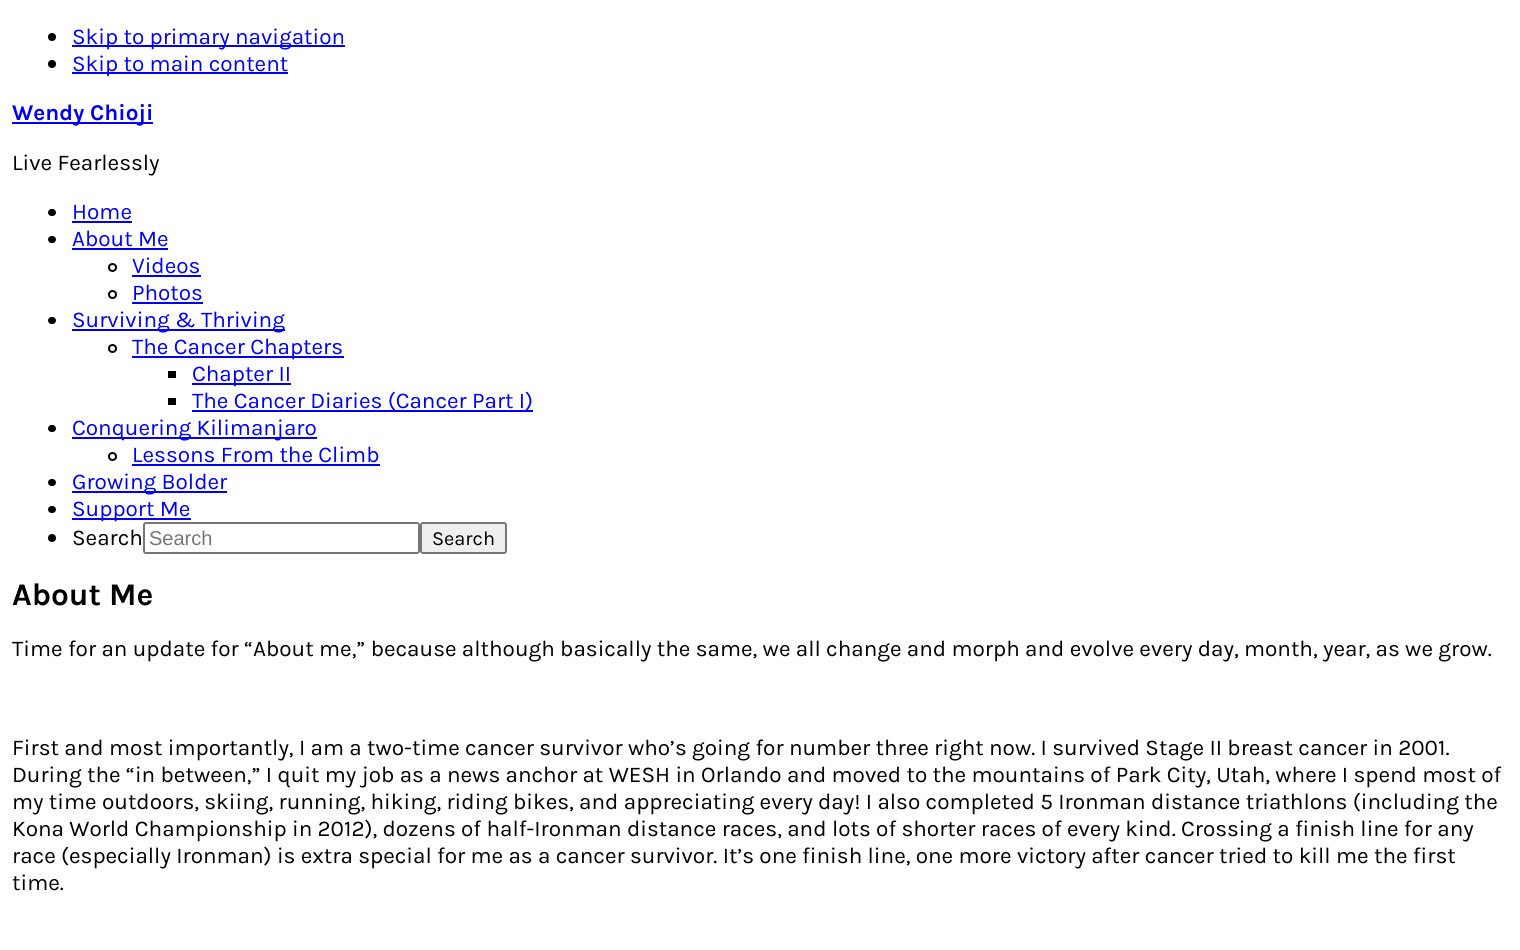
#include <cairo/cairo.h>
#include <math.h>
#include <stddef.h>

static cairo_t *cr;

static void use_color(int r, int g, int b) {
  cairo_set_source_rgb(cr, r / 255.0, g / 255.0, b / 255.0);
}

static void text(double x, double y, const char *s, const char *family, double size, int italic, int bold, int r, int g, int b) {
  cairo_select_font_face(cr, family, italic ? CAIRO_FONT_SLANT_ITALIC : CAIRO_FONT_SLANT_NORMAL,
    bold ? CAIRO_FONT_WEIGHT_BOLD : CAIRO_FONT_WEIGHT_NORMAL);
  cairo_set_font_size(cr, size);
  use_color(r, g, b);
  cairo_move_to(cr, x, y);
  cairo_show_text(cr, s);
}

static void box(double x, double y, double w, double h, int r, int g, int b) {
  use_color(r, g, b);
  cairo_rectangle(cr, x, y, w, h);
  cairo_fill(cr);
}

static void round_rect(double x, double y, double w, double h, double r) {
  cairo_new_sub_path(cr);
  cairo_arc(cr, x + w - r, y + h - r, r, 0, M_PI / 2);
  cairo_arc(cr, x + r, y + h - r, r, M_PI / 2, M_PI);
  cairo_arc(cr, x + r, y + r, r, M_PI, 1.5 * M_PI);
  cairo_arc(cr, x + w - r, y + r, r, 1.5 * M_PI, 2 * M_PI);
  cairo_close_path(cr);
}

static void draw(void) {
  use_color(255, 255, 255);
  cairo_paint(cr);
  use_color(0, 0, 0);
  cairo_arc(cr, 52, 37, 4, 0, 2 * M_PI);
  cairo_fill(cr);
  box(72, 45, 273, 2, 0, 0, 238);
  use_color(0, 0, 0);
  cairo_arc(cr, 52, 64, 4, 0, 2 * M_PI);
  cairo_fill(cr);
  box(72, 72, 216, 2, 0, 0, 238);
  box(12, 122, 141, 2, 0, 0, 238);
  use_color(0, 0, 0);
  round_rect(48, 209, 8, 7, 3.5);
  cairo_fill(cr);
  box(72, 221, 60, 2, 0, 0, 238);
  use_color(0, 0, 0);
  round_rect(48, 236, 8, 7, 3.5);
  cairo_fill(cr);
  box(72, 248, 96, 2, 0, 0, 238);
  cairo_arc(cr, 112.5, 267.5, 3.5, 0, 2 * M_PI);
  use_color(0, 0, 0);
  cairo_stroke(cr);
  box(132, 275, 69, 2, 0, 0, 238);
  cairo_arc(cr, 112.5, 294.5, 3.5, 0, 2 * M_PI);
  use_color(0, 0, 0);
  cairo_stroke(cr);
  box(132, 302, 71, 2, 0, 0, 238);
  use_color(0, 0, 0);
  round_rect(48, 317, 8, 7, 3.5);
  cairo_fill(cr);
  box(72, 329, 213, 2, 0, 0, 238);
  cairo_arc(cr, 112.5, 348.5, 3.5, 0, 2 * M_PI);
  use_color(0, 0, 0);
  cairo_stroke(cr);
  box(132, 356, 212, 2, 0, 0, 238);
  box(168, 371, 8, 7, 0, 0, 0);
  box(192, 383, 99, 2, 0, 0, 238);
  box(168, 398, 8, 7, 0, 0, 0);
  box(192, 410, 341, 2, 0, 0, 238);
  use_color(0, 0, 0);
  round_rect(48, 425, 8, 7, 3.5);
  cairo_fill(cr);
  box(72, 437, 245, 2, 0, 0, 238);
  cairo_arc(cr, 112.5, 456.5, 3.5, 0, 2 * M_PI);
  use_color(0, 0, 0);
  cairo_stroke(cr);
  box(132, 464, 248, 2, 0, 0, 238);
  use_color(0, 0, 0);
  round_rect(48, 479, 8, 7, 3.5);
  cairo_fill(cr);
  box(72, 491, 155, 2, 0, 0, 238);
  use_color(0, 0, 0);
  round_rect(48, 506, 8, 7, 3.5);
  cairo_fill(cr);
  box(72, 518, 119, 2, 0, 0, 238);
  use_color(0, 0, 0);
  cairo_arc(cr, 52, 538, 4, 0, 2 * M_PI);
  cairo_fill(cr);
  round_rect(144, 523, 275, 30, 2);
  use_color(118, 118, 118);
  cairo_stroke(cr);
  use_color(239, 239, 239);
  round_rect(421, 523, 85, 30, 2);
  cairo_fill_preserve(cr);
  use_color(118, 118, 118);
  cairo_stroke(cr);
  text(72, 44, "Skip to primary navigation", "Karla", 22.5, 0, 0, 0, 0, 238);
  text(72, 71, "Skip to main content", "Karla", 22.5, 0, 0, 0, 0, 238);
  text(12, 120, "Wendy Chioji", "Karla", 22.5, 0, 1, 0, 0, 238);
  text(12, 170, "Live Fearlessly", "Karla", 22.5, 0, 0, 0, 0, 0);
  text(72, 219, "Home", "Karla", 22.5, 0, 0, 0, 0, 238);
  text(72, 246, "About Me", "Karla", 22.5, 0, 0, 0, 0, 238);
  text(132, 273, "Videos", "Karla", 22.5, 0, 0, 0, 0, 238);
  text(132, 300, "Photos", "Karla", 22.5, 0, 0, 0, 0, 238);
  text(72, 327, "Surviving & Thriving", "Karla", 22.5, 0, 0, 0, 0, 238);
  text(132, 354, "The Cancer Chapters", "Karla", 22.5, 0, 0, 0, 0, 238);
  text(192, 381, "Chapter II", "Karla", 22.5, 0, 0, 0, 0, 238);
  text(192, 408, "The Cancer Diaries (Cancer Part I)", "Karla", 22.5, 0, 0, 0, 0, 238);
  text(72, 435, "Conquering Kilimanjaro", "Karla", 22.5, 0, 0, 0, 0, 238);
  text(132, 462, "Lessons From the Climb", "Karla", 22.5, 0, 0, 0, 0, 238);
  text(72, 489, "Growing Bolder", "Karla", 22.5, 0, 0, 0, 0, 238);
  text(72, 516, "Support Me", "Karla", 22.5, 0, 0, 0, 0, 238);
  text(72, 545, "Search", "Karla", 22.5, 0, 0, 0, 0, 0);
  text(149, 545, "Search", "Liberation Sans", 20, 0, 0, 117, 117, 117);
  text(432, 545, "Search", "Karla", 20, 0, 0, 0, 0, 0);
  text(12, 605, "About Me", "Karla", 31.5, 0, 1, 0, 0, 0);
  text(12, 656, "Time for an update for “About me,” because although basically the same, we all change and morph and evolve every day, month, year, as we grow.", "Karla", 22.5, 0, 0, 0, 0, 0);
  text(12, 755, "First and most importantly, I am a two-time cancer survivor who’s going for number three right now. I survived Stage II breast cancer in 2001.", "Karla", 22.5, 0, 0, 0, 0, 0);
  text(12, 782, "During the “in between,” I quit my job as a news anchor at WESH in Orlando and moved to the mountains of Park City, Utah, where I spend most of", "Karla", 22.5, 0, 0, 0, 0, 0);
  text(12, 809, "my time outdoors, skiing, running, hiking, riding bikes, and appreciating every day! I also completed 5 Ironman distance triathlons (including the", "Karla", 22.5, 0, 0, 0, 0, 0);
  text(12, 836, "Kona World Championship in 2012), dozens of half-Ironman distance races, and lots of shorter races of every kind. Crossing a finish line for any", "Karla", 22.5, 0, 0, 0, 0, 0);
  text(12, 863, "race (especially Ironman) is extra special for me as a cancer survivor. It’s one finish line, one more victory after cancer tried to kill me the first", "Karla", 22.5, 0, 0, 0, 0, 0);
  text(12, 890, "time.", "Karla", 22.5, 0, 0, 0, 0, 0);
}

int main(void) {
  cairo_surface_t *surface = cairo_image_surface_create(CAIRO_FORMAT_RGB24, 1520, 950);
  cr = cairo_create(surface);
  cairo_font_options_t *options = cairo_font_options_create();
  cairo_font_options_set_hint_metrics(options, CAIRO_HINT_METRICS_OFF);
  cairo_font_options_set_hint_style(options, CAIRO_HINT_STYLE_NONE);
  cairo_set_font_options(cr, options);
  cairo_set_miter_limit(cr, 4);
  draw();
  cairo_surface_write_to_png(surface, "out.png");
  cairo_font_options_destroy(options);
  cairo_destroy(cr);
  cairo_surface_destroy(surface);
  return 0;
}
